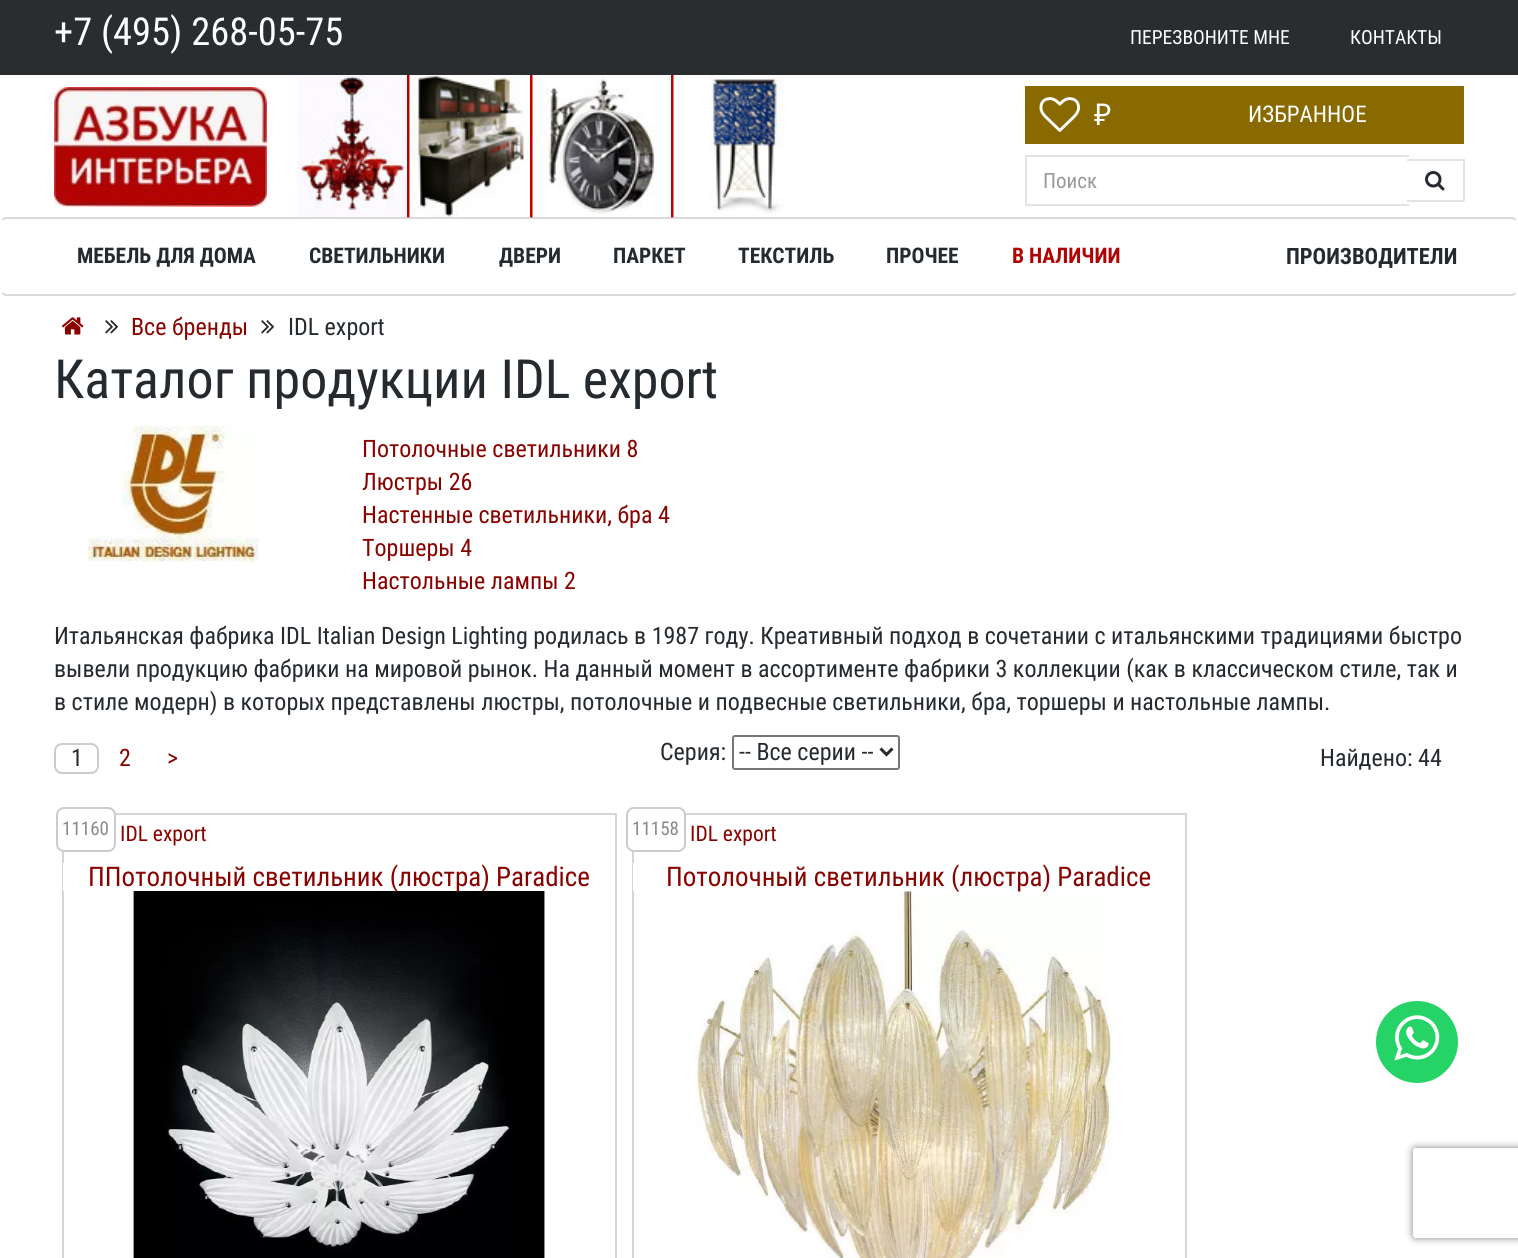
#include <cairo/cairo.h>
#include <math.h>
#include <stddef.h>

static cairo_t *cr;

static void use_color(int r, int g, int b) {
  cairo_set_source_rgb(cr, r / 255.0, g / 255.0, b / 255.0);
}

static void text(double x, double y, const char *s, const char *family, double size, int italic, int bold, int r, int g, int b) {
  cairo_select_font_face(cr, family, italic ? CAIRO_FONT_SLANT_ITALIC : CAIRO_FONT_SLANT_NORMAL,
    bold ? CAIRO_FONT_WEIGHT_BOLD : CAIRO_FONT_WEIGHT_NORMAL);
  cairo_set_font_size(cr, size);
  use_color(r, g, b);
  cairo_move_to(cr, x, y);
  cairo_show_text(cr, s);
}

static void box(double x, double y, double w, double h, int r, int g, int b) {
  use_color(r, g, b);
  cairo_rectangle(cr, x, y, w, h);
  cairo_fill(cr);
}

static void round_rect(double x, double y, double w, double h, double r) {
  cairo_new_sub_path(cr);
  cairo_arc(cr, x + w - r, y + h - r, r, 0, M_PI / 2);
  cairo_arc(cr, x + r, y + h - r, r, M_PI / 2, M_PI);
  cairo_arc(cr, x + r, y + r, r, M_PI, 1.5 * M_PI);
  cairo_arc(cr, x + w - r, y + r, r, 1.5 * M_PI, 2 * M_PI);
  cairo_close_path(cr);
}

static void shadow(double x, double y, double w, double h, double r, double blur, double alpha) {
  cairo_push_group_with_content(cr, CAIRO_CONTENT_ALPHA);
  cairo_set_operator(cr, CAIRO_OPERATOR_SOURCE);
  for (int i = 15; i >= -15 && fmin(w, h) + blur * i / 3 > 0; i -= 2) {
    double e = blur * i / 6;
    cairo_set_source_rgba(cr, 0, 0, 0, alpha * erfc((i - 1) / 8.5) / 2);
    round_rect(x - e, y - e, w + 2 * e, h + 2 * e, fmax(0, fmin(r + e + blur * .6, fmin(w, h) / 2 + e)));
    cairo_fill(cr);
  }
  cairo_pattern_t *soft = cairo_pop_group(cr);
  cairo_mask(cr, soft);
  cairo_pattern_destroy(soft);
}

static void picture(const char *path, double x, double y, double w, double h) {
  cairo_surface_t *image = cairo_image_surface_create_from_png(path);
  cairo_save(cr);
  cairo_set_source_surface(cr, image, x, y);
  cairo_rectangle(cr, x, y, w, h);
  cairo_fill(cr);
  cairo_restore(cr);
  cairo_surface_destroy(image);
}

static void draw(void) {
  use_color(255, 255, 255);
  cairo_paint(cr);
  box(0, 0, 1518, 75, 41, 45, 48);
  picture("img_01.png", 54, 87, 213, 120);
  picture("img_02.png", 297, 75, 110, 142);
  box(407, 75, 3, 143, 192, 0, 0);
  picture("img_03.png", 409, 75, 120, 143);
  box(530, 75, 3, 143, 192, 0, 0);
  picture("img_04.png", 532, 75, 124, 143);
  box(671, 75, 3, 143, 192, 0, 0);
  picture("img_05.png", 673, 75, 111, 143);
  box(1025, 86, 439, 58, 136, 106, 0);
  picture("img_06.png", 1039, 97, 41, 35);
  box(1025, 155, 384, 2, 227, 227, 227);
  box(1025, 204, 384, 2, 227, 227, 227);
  box(1025, 155, 2, 51, 227, 227, 227);
  box(1407, 159, 57, 2, 227, 227, 227);
  box(1463, 159, 2, 42, 227, 227, 227);
  box(1407, 200, 57, 2, 227, 227, 227);
  picture("img_07.png", 1425, 171, 20, 20);
  cairo_new_path(cr);
  cairo_move_to(cr, 2.5, 220);
  cairo_curve_to(cr, 3.5, 219, 4.5, 218, 6, 218);
  cairo_line_to(cr, 1512, 218);
  cairo_curve_to(cr, 1513.5, 218, 1514.5, 219, 1515.5, 220);
  use_color(204, 204, 204);
  cairo_set_line_width(cr, 1.5);
  cairo_stroke(cr);
  cairo_new_path(cr);
  cairo_move_to(cr, 1515.5, 293);
  cairo_curve_to(cr, 1514.5, 294, 1513.5, 295, 1512, 295);
  cairo_line_to(cr, 6, 295);
  cairo_curve_to(cr, 4.5, 295, 3.5, 294, 2.5, 293);
  cairo_stroke(cr);
  picture("img_08.png", 61, 317, 23, 18);
  picture("img_09.png", 105, 320, 14, 14);
  picture("img_09.png", 261, 320, 14, 14);
  picture("img_10.png", 87, 426, 172, 137);
  round_rect(55, 744, 43, 29, 7);
  cairo_set_line_width(cr, 2);
  cairo_stroke(cr);
  round_rect(733, 736, 166, 33, 2);
  use_color(118, 118, 118);
  cairo_stroke(cr);
  cairo_new_path(cr);
  cairo_move_to(cr, 880.5, 748.5);
  cairo_line_to(cr, 886.5, 754.5);
  cairo_line_to(cr, 892.5, 748.5);
  use_color(37, 42, 47);
  cairo_set_line_width(cr, 3);
  cairo_stroke(cr);
  cairo_rectangle(cr, 63, 814, 553, 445);
  use_color(213, 213, 213);
  cairo_set_line_width(cr, 2);
  cairo_stroke(cr);
  use_color(255, 255, 255);
  round_rect(57, 808, 58, 43, 7);
  cairo_fill_preserve(cr);
  use_color(204, 204, 204);
  cairo_stroke(cr);
  box(63, 863, 1, 28, 255, 255, 255);
  picture("img_11.png", 132, 891, 414, 367);
  cairo_rectangle(cr, 633, 814, 553, 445);
  use_color(213, 213, 213);
  cairo_stroke(cr);
  use_color(255, 255, 255);
  round_rect(627, 808, 58, 43, 7);
  cairo_fill_preserve(cr);
  use_color(204, 204, 204);
  cairo_stroke(cr);
  box(633, 863, 1, 28, 255, 255, 255);
  picture("img_12.png", 695, 891, 418, 367);
  use_color(37, 211, 102);
  cairo_arc(cr, 1417, 1042, 41, 0, 2 * M_PI);
  cairo_fill(cr);
  picture("img_13.png", 1394, 1015, 46, 46);
  cairo_save(cr);
  cairo_set_fill_rule(cr, CAIRO_FILL_RULE_EVEN_ODD);
  cairo_new_path(cr);
  cairo_move_to(cr, 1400, 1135);
  cairo_line_to(cr, 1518, 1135);
  cairo_line_to(cr, 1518, 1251);
  cairo_line_to(cr, 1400, 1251);
  cairo_close_path(cr);
  cairo_move_to(cr, 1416, 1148);
  cairo_line_to(cr, 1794, 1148);
  cairo_curve_to(cr, 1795.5, 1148, 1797, 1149.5, 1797, 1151);
  cairo_line_to(cr, 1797, 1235);
  cairo_curve_to(cr, 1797, 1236.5, 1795.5, 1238, 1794, 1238);
  cairo_line_to(cr, 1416, 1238);
  cairo_curve_to(cr, 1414.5, 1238, 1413, 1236.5, 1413, 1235);
  cairo_line_to(cr, 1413, 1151);
  cairo_curve_to(cr, 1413, 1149.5, 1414.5, 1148, 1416, 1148);
  cairo_close_path(cr);
  cairo_clip(cr);
  use_color(128, 128, 128);
  shadow(1413, 1148, 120, 90, 3, 4, 1);
  cairo_restore(cr);
  text(54, 45, "+7 (495) 268-05-75", "Roboto Condensed", 38.5, 0, 0, 255, 255, 255);
  text(1130, 44, "ПЕРЕЗВОНИТЕ МНЕ", "Roboto Condensed", 19.5, 0, 0, 255, 255, 255);
  text(1350, 44, "КОНТАКТЫ", "Roboto Condensed", 19.5, 0, 0, 255, 255, 255);
  text(1094, 125, "₽", "Noto Sans", 30, 0, 0, 255, 255, 255);
  text(1248, 122, "ИЗБРАННОЕ", "Roboto Condensed", 23, 0, 0, 255, 255, 255);
  text(1043, 188, "Поиск", "Roboto Condensed", 21, 0, 0, 153, 153, 153);
  text(77, 263, "МЕБЕЛЬ ДЛЯ ДОМА", "Roboto Condensed", 21.5, 0, 1, 37, 42, 47);
  text(309, 263, "СВЕТИЛЬНИКИ", "Roboto Condensed", 21.5, 0, 1, 37, 42, 47);
  text(499, 263, "ДВЕРИ", "Roboto Condensed", 21.5, 0, 1, 37, 42, 47);
  text(613, 263, "ПАРКЕТ", "Roboto Condensed", 21.5, 0, 1, 37, 42, 47);
  text(738, 263, "ТЕКСТИЛЬ", "Roboto Condensed", 21.5, 0, 1, 37, 42, 47);
  text(886, 263, "ПРОЧЕЕ", "Roboto Condensed", 21.5, 0, 1, 37, 42, 47);
  text(1012, 263, "В НАЛИЧИИ", "Roboto Condensed", 21.5, 0, 1, 176, 3, 3);
  text(1286, 264, "ПРОИЗВОДИТЕЛИ", "Roboto Condensed", 22.5, 0, 1, 37, 42, 47);
  text(131, 335, "Все бренды", "Roboto Condensed", 24, 0, 0, 136, 3, 0);
  text(288, 335, "IDL export", "Roboto Condensed", 24, 0, 0, 37, 42, 47);
  text(54, 398, "Каталог продукции IDL export", "Roboto Condensed", 54, 0, 0, 37, 42, 47);
  text(362, 457, "Потолочные светильники 8", "Roboto Condensed", 24, 0, 0, 136, 3, 0);
  text(362, 490, "Люстры 26", "Roboto Condensed", 24, 0, 0, 136, 3, 0);
  text(362, 523, "Настенные светильники, бра 4", "Roboto Condensed", 24, 0, 0, 136, 3, 0);
  text(362, 556, "Торшеры 4", "Roboto Condensed", 24, 0, 0, 136, 3, 0);
  text(362, 589, "Настольные лампы 2", "Roboto Condensed", 24, 0, 0, 136, 3, 0);
  text(54, 644, "Итальянская фабрика IDL Italian Design Lighting родилась в 1987 году. Креативный подход в сочетании с итальянскими традициями быстро", "Roboto Condensed", 24, 0, 0, 37, 42, 47);
  text(54, 677, "вывели продукцию фабрики на мировой рынок. На данный момент в ассортименте фабрики 3 коллекции (как в классическом стиле, так и", "Roboto Condensed", 24, 0, 0, 37, 42, 47);
  text(54, 710, "в стиле модерн) в которых представлены люстры, потолочные и подвесные светильники, бра, торшеры и настольные лампы.", "Roboto Condensed", 24, 0, 0, 37, 42, 47);
  text(71, 766, "1", "Roboto Condensed", 24, 0, 0, 37, 42, 47);
  text(119, 766, "2", "Roboto Condensed", 24, 0, 0, 136, 3, 0);
  text(167, 766, ">", "Roboto Condensed", 24, 0, 0, 136, 3, 0);
  text(660, 760, "Серия:", "Roboto Condensed", 24, 0, 0, 37, 42, 47);
  text(739, 760, "-- Все серии --", "Roboto Condensed", 24, 0, 0, 37, 42, 47);
  text(1320, 766, "Найдено: 44", "Roboto Condensed", 24, 0, 0, 37, 42, 47);
  text(62, 835, "11160", "Roboto Condensed", 19, 0, 0, 136, 136, 136);
  text(120, 841, "IDL export", "Roboto Condensed", 21.5, 0, 0, 136, 3, 0);
  text(88, 886, "ППотолочный светильник (люстра) Paradice", "Roboto Condensed", 27, 0, 0, 136, 3, 0);
  text(632, 835, "11158", "Roboto Condensed", 19, 0, 0, 136, 136, 136);
  text(690, 841, "IDL export", "Roboto Condensed", 21.5, 0, 0, 136, 3, 0);
  text(666, 886, "Потолочный светильник (люстра) Paradice", "Roboto Condensed", 27, 0, 0, 136, 3, 0);
}

int main(void) {
  cairo_surface_t *surface = cairo_image_surface_create(CAIRO_FORMAT_RGB24, 1518, 1258);
  cr = cairo_create(surface);
  cairo_font_options_t *options = cairo_font_options_create();
  cairo_font_options_set_hint_metrics(options, CAIRO_HINT_METRICS_OFF);
  cairo_font_options_set_hint_style(options, CAIRO_HINT_STYLE_NONE);
  cairo_set_font_options(cr, options);
  cairo_set_miter_limit(cr, 4);
  draw();
  cairo_surface_write_to_png(surface, "out.png");
  cairo_font_options_destroy(options);
  cairo_destroy(cr);
  cairo_surface_destroy(surface);
  return 0;
}
